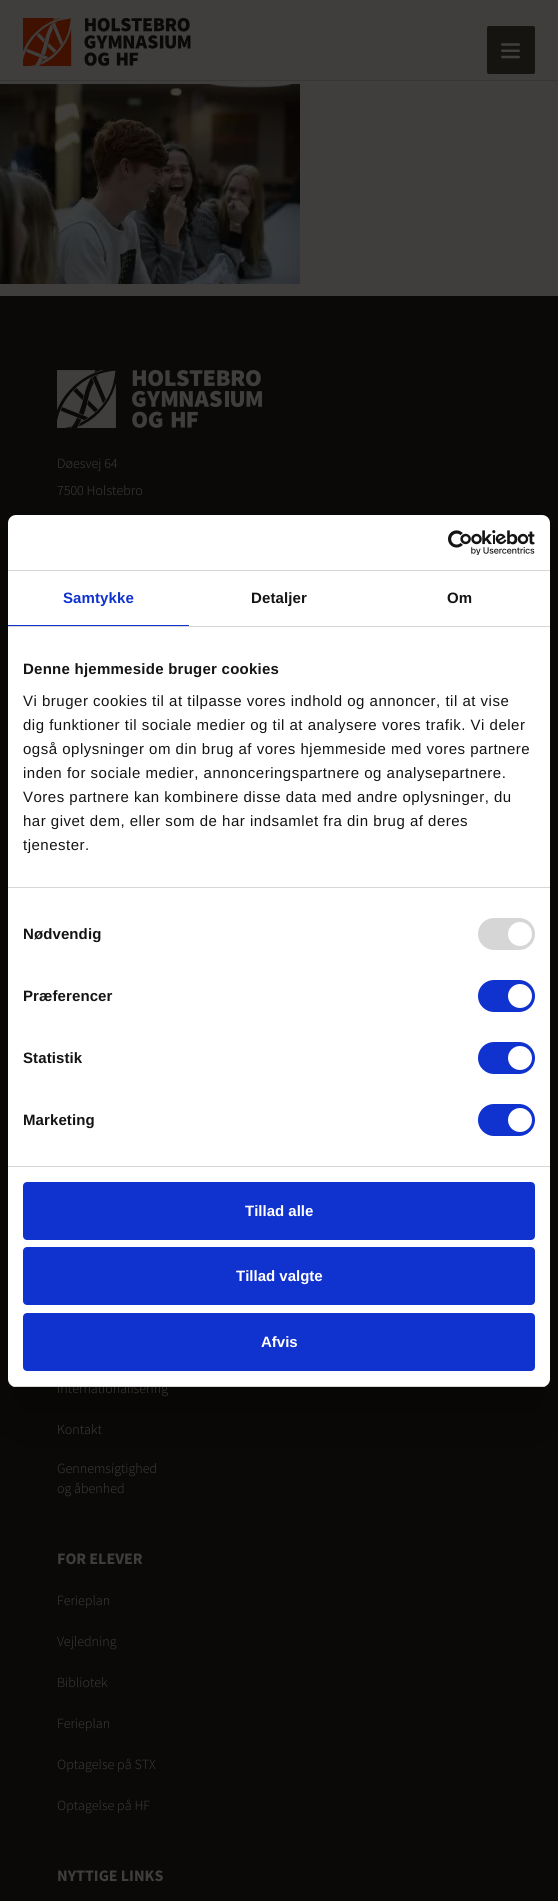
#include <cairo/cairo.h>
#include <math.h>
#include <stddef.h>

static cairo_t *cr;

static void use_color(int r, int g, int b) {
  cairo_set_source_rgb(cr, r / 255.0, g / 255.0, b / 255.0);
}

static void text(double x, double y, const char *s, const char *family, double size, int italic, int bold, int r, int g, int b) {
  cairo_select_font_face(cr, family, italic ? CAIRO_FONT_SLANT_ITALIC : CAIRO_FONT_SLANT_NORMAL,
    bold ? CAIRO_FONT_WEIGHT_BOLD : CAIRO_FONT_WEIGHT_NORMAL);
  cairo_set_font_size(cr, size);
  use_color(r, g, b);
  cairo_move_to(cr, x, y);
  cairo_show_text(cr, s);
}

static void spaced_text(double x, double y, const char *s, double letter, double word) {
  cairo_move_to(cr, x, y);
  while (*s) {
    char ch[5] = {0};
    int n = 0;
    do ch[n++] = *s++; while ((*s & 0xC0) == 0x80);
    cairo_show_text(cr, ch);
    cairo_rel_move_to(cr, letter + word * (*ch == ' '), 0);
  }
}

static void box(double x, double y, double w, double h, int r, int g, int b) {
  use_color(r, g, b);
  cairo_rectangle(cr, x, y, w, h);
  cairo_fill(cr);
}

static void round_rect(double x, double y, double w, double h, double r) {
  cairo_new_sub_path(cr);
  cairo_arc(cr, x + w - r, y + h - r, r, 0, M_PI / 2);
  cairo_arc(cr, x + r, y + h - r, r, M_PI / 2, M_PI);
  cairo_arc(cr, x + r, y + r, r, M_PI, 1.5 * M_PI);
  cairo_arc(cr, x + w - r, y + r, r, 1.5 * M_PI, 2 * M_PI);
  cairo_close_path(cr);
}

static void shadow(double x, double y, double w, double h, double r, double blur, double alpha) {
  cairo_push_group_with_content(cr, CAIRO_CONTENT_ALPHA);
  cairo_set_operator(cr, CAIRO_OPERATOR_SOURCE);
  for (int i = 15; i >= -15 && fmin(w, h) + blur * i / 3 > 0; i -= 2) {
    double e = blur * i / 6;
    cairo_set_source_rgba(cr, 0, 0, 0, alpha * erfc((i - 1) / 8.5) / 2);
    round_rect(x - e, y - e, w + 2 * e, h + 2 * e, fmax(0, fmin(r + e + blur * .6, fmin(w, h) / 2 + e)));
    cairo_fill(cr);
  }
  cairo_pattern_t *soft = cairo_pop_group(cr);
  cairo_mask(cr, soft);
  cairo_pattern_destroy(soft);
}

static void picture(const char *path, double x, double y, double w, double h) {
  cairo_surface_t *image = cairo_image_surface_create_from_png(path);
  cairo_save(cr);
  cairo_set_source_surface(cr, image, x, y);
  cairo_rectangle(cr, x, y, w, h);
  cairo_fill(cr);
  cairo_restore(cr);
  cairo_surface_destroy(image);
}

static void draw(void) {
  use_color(64, 62, 60);
  cairo_paint(cr);
  picture("img_01.png", 23, 18, 168, 48);
  use_color(22, 20, 17);
  round_rect(487, 26, 48, 48, 2);
  cairo_fill(cr);
  picture("img_02.png", 501, 43, 19, 16);
  box(0, 80, 558, 1, 54, 54, 54);
  picture("img_03.png", 0, 84, 300, 200);
  box(0, 296, 558, 1605, 10, 9, 7);
  picture("img_04.png", 57, 370, 205, 58);
  use_color(0, 0, 0);
  shadow(8, 547, 542, 872, 8, 34, 0.3);
  text(57, 468, "Døesvej 64", "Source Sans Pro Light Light", 14, 0, 0, 64, 62, 60);
  text(57, 495, "7500 Holstebro", "Source Sans Pro Light Light", 14, 0, 0, 64, 62, 60);
  text(57, 1393, "Internationalisering", "Source Sans Pro Light Light", 14, 0, 0, 64, 62, 60);
  text(57, 1434, "Kontakt", "Source Sans Pro Light Light", 14, 0, 0, 64, 62, 60);
  text(57, 1473, "Gennemsigtighed", "Source Sans Pro Light Light", 14, 0, 0, 64, 62, 60);
  text(57, 1493, "og åbenhed", "Source Sans Pro Light Light", 14, 0, 0, 64, 62, 60);
  text(57, 1564, "FOR ELEVER", "Source Sans Pro", 16, 0, 1, 64, 62, 60);
  text(57, 1605, "Ferieplan", "Source Sans Pro Light Light", 14, 0, 0, 64, 62, 60);
  text(57, 1646, "Vejledning", "Source Sans Pro Light Light", 14, 0, 0, 64, 62, 60);
  text(57, 1687, "Bibliotek", "Source Sans Pro Light Light", 14, 0, 0, 64, 62, 60);
  text(57, 1728, "Ferieplan", "Source Sans Pro Light Light", 14, 0, 0, 64, 62, 60);
  text(57, 1769, "Optagelse på STX", "Source Sans Pro Light Light", 14, 0, 0, 64, 62, 60);
  text(57, 1810, "Optagelse på HF", "Source Sans Pro Light Light", 14, 0, 0, 64, 62, 60);
  text(57, 1881, "NYTTIGE LINKS", "Source Sans Pro", 16, 0, 1, 64, 62, 60);
  use_color(255, 255, 255);
  round_rect(8, 515, 542, 872, 8);
  cairo_fill(cr);
  box(8, 570, 542, 1, 214, 214, 214);
  picture("img_05.png", 448, 530, 87, 25);
  box(8, 626, 542, 1, 214, 214, 214);
  box(8, 625, 181, 1, 16, 50, 207);
  cairo_select_font_face(cr, "Liberation Sans", CAIRO_FONT_SLANT_NORMAL, CAIRO_FONT_WEIGHT_BOLD);
  cairo_set_font_size(cr, 15);
  spaced_text(63, 603, "Samtykke", 0.1, 0);
  use_color(20, 20, 20);
  spaced_text(251, 603, "Detaljer", 0.1, 0);
  spaced_text(447, 603, "Om", 0.1, 0);
  box(8, 887, 542, 1, 214, 214, 214);
  use_color(20, 20, 20);
  spaced_text(23, 674, "Denne hjemmeside bruger cookies", 0.25, 0);
  cairo_select_font_face(cr, "Liberation Sans", CAIRO_FONT_SLANT_NORMAL, CAIRO_FONT_WEIGHT_NORMAL);
  spaced_text(23, 706, "Vi bruger cookies til at tilpasse vores indhold og annoncer, til at vise", 0.5, 0);
  spaced_text(23, 730, "dig funktioner til sociale medier og til at analysere vores trafik. Vi deler", 0.5, 0);
  spaced_text(23, 754, "også oplysninger om din brug af vores hjemmeside med vores partnere", 0.5, 0);
  spaced_text(23, 778, "inden for sociale medier, annonceringspartnere og analysepartnere.", 0.5, 0);
  spaced_text(23, 802, "Vores partnere kan kombinere disse data med andre oplysninger, du", 0.5, 0);
  spaced_text(23, 826, "har givet dem, eller som de har indsamlet fra din brug af deres", 0.5, 0);
  spaced_text(23, 850, "tjenester.", 0.5, 0);
  box(8, 1166, 542, 1, 214, 214, 214);
  cairo_select_font_face(cr, "Liberation Sans", CAIRO_FONT_SLANT_NORMAL, CAIRO_FONT_WEIGHT_BOLD);
  use_color(20, 20, 20);
  spaced_text(23, 939, "Nødvendig", 0.1, 0);
  use_color(214, 214, 214);
  round_rect(478, 918, 57, 32, 16);
  cairo_fill(cr);
  use_color(255, 255, 255);
  cairo_arc(cr, 520, 934, 12, 0, 2 * M_PI);
  cairo_fill(cr);
  use_color(20, 20, 20);
  spaced_text(23, 1001, "Præferencer", 0.1, 0);
  use_color(16, 50, 207);
  round_rect(478, 980, 57, 32, 16);
  cairo_fill(cr);
  use_color(255, 255, 255);
  cairo_arc(cr, 520, 996, 12, 0, 2 * M_PI);
  cairo_fill(cr);
  use_color(20, 20, 20);
  spaced_text(23, 1063, "Statistik", 0.1, 0);
  use_color(16, 50, 207);
  round_rect(478, 1042, 57, 32, 16);
  cairo_fill(cr);
  use_color(255, 255, 255);
  cairo_arc(cr, 520, 1058, 12, 0, 2 * M_PI);
  cairo_fill(cr);
  use_color(20, 20, 20);
  spaced_text(23, 1125, "Marketing", 0.1, 0);
  use_color(16, 50, 207);
  round_rect(478, 1104, 57, 32, 16);
  cairo_fill(cr);
  use_color(255, 255, 255);
  cairo_arc(cr, 520, 1120, 12, 0, 2 * M_PI);
  cairo_fill(cr);
  cairo_save(cr);
  round_rect(8, 515, 542, 872, 8);
  cairo_clip(cr);
  box(8, 1386, 542, 1, 214, 214, 214);
  cairo_restore(cr);
  use_color(16, 50, 207);
  round_rect(24, 1183, 510, 56, 3);
  cairo_fill_preserve(cr);
  cairo_stroke(cr);
  text(245, 1216, "Tillad alle", "Liberation Sans", 15, 0, 1, 255, 255, 255);
  use_color(16, 50, 207);
  round_rect(24, 1248, 510, 56, 3);
  cairo_fill_preserve(cr);
  cairo_stroke(cr);
  text(236, 1281, "Tillad valgte", "Liberation Sans", 15, 0, 1, 255, 255, 255);
  use_color(16, 50, 207);
  round_rect(24, 1314, 510, 56, 3);
  cairo_fill_preserve(cr);
  cairo_stroke(cr);
  text(261, 1347, "Afvis", "Liberation Sans", 15, 0, 1, 255, 255, 255);
}

int main(void) {
  cairo_surface_t *surface = cairo_image_surface_create(CAIRO_FORMAT_RGB24, 558, 1901);
  cr = cairo_create(surface);
  cairo_font_options_t *options = cairo_font_options_create();
  cairo_font_options_set_hint_metrics(options, CAIRO_HINT_METRICS_OFF);
  cairo_font_options_set_hint_style(options, CAIRO_HINT_STYLE_NONE);
  cairo_set_font_options(cr, options);
  cairo_set_miter_limit(cr, 4);
  draw();
  cairo_surface_write_to_png(surface, "out.png");
  cairo_font_options_destroy(options);
  cairo_destroy(cr);
  cairo_surface_destroy(surface);
  return 0;
}
